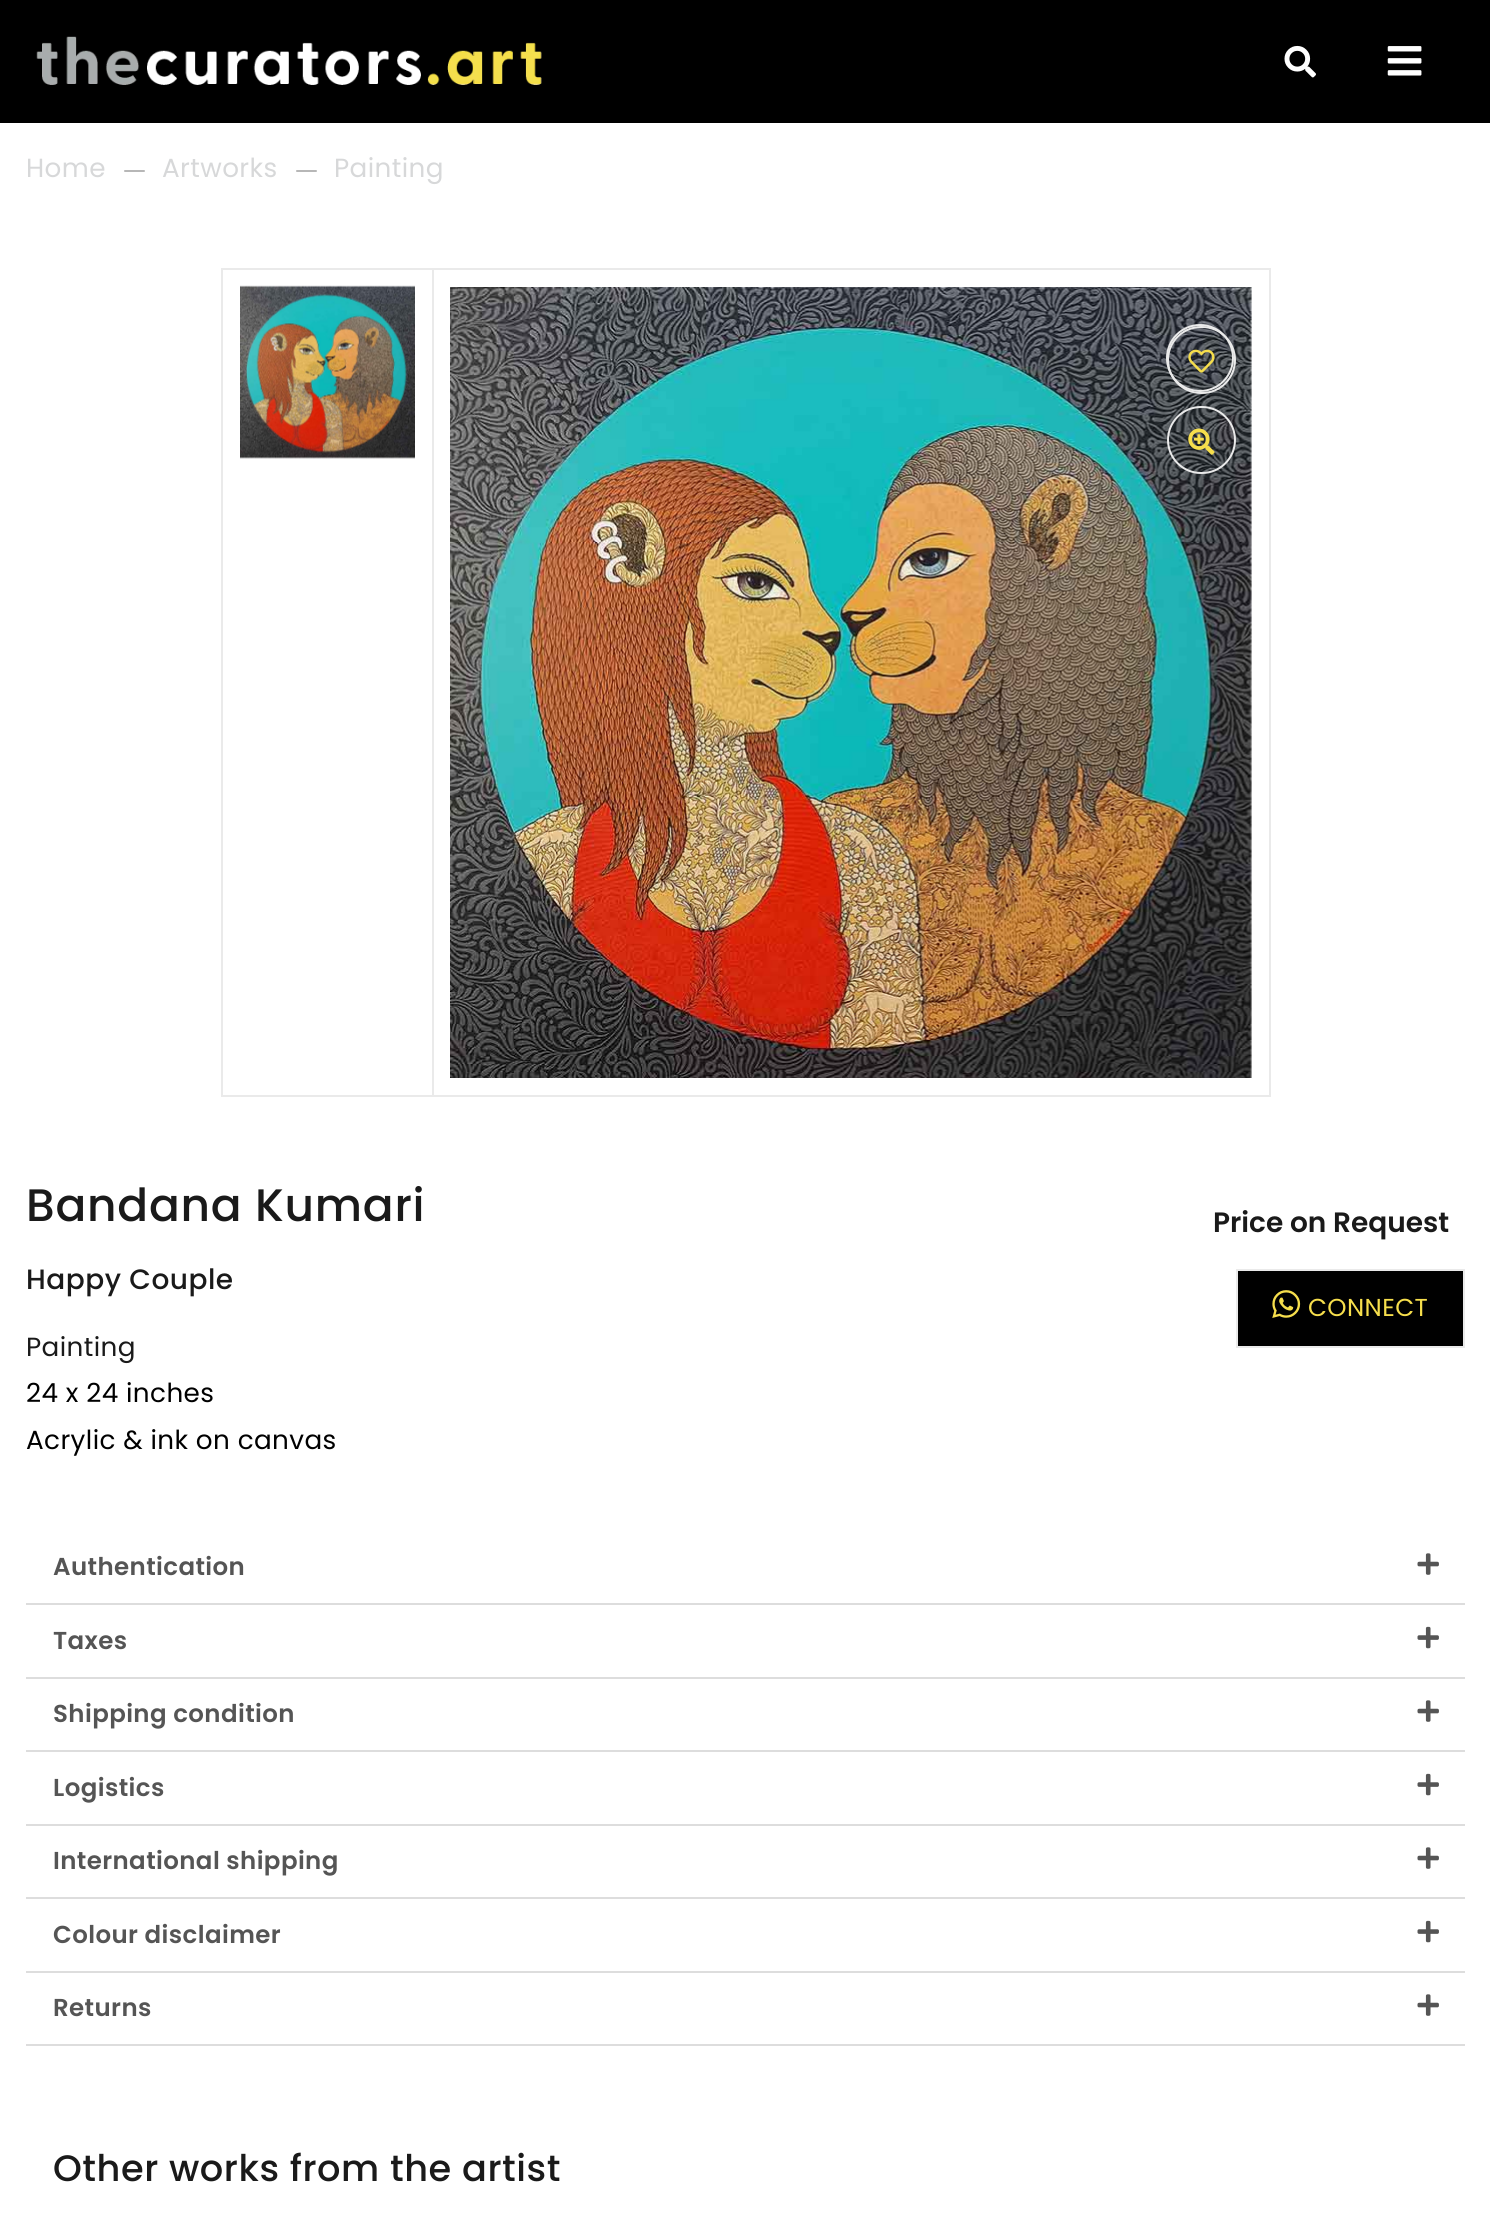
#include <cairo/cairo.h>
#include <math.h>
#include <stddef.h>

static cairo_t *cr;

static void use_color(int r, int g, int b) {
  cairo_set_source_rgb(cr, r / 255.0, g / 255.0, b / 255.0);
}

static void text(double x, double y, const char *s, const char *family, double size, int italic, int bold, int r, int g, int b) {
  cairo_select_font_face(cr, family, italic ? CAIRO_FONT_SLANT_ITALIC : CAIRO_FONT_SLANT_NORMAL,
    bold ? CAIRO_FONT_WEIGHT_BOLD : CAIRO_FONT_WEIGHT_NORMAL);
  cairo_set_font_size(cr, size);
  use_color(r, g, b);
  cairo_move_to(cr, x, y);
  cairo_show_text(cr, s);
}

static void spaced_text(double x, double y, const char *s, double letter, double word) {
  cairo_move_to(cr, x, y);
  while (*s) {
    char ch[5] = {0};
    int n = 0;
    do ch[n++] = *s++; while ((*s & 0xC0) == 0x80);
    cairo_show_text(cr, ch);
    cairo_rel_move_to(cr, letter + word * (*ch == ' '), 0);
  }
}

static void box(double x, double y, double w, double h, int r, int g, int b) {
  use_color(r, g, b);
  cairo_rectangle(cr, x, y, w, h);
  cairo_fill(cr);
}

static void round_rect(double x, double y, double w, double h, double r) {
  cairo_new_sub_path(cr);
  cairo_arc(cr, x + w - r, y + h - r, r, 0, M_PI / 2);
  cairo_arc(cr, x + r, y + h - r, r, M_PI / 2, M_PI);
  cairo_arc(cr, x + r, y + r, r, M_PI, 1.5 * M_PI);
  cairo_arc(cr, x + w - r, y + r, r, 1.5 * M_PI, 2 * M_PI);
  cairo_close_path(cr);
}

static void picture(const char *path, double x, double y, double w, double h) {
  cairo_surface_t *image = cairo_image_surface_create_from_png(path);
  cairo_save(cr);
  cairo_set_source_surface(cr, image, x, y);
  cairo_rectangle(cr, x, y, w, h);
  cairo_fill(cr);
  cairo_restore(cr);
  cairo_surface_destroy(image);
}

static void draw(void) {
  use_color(255, 255, 255);
  cairo_paint(cr);
  box(0, 0, 1490, 123, 0, 0, 0);
  picture("img_01.png", 36, 36, 506, 49);
  picture("img_02.png", 1284, 45, 32, 33);
  picture("img_03.png", 1387, 46, 35, 30);
  use_color(183, 183, 183);
  round_rect(124, 170, 21, 2, 1);
  cairo_fill(cr);
  round_rect(296, 170, 21, 2, 1);
  cairo_fill(cr);
  cairo_rectangle(cr, 222, 269, 1048, 827);
  use_color(234, 234, 234);
  cairo_stroke(cr);
  picture("img_04.png", 240, 285, 175, 174);
  box(432, 270, 2, 826, 234, 234, 234);
  picture("img_05.png", 450, 287, 802, 791);
  cairo_arc(cr, 1200, 358, 33, 0, 2 * M_PI);
  cairo_stroke(cr);
  round_rect(1168, 327, 67, 66, 33);
  cairo_stroke(cr);
  picture("img_06.png", 1188, 349, 27, 24);
  round_rect(1168, 407, 67, 66, 33);
  cairo_stroke(cr);
  picture("img_07.png", 1188, 428, 27, 27);
  use_color(0, 0, 0);
  cairo_rectangle(cr, 1237, 1270, 227, 77);
  cairo_fill_preserve(cr);
  use_color(234, 234, 234);
  cairo_stroke(cr);
  picture("img_08.png", 1272, 1290, 29, 28);
  box(26, 1603, 1439, 2, 221, 221, 221);
  picture("img_09.png", 1417, 1553, 22, 22);
  box(26, 1677, 1439, 2, 221, 221, 221);
  picture("img_10.png", 1417, 1626, 22, 23);
  box(26, 1750, 1439, 2, 221, 221, 221);
  picture("img_09.png", 1417, 1700, 22, 22);
  box(26, 1824, 1439, 2, 221, 221, 221);
  picture("img_10.png", 1417, 1773, 22, 23);
  box(26, 1897, 1439, 2, 221, 221, 221);
  picture("img_09.png", 1417, 1847, 22, 22);
  box(26, 1971, 1439, 2, 221, 221, 221);
  picture("img_10.png", 1417, 1920, 22, 23);
  box(26, 2044, 1439, 2, 221, 221, 221);
  picture("img_09.png", 1417, 1994, 22, 22);
  cairo_select_font_face(cr, "Poppins", CAIRO_FONT_SLANT_NORMAL, CAIRO_FONT_WEIGHT_NORMAL);
  cairo_set_font_size(cr, 26.25);
  use_color(215, 216, 217);
  spaced_text(26, 177, "Home", 0.4, 0);
  spaced_text(162, 177, "Artworks", 0.4, 0);
  spaced_text(334, 177, "Painting", 0.4, 0);
  cairo_select_font_face(cr, "Poppins Medium", CAIRO_FONT_SLANT_NORMAL, CAIRO_FONT_WEIGHT_NORMAL);
  cairo_set_font_size(cr, 45.5);
  use_color(26, 26, 26);
  spaced_text(26, 1221, "Bandana Kumari", 0.75, 0);
  cairo_set_font_size(cr, 28);
  spaced_text(26, 1289, "Happy Couple", 0.5, 0);
  cairo_select_font_face(cr, "Poppins", CAIRO_FONT_SLANT_NORMAL, CAIRO_FONT_WEIGHT_NORMAL);
  cairo_set_font_size(cr, 26.25);
  spaced_text(26, 1356, "Painting", 0.4, 0);
  use_color(0, 0, 0);
  spaced_text(26, 1402, "24 x 24 inches", 0.4, 0);
  spaced_text(26, 1449, "Acrylic & ink on canvas", 0.4, 0);
  text(1213, 1232, "Price on Request", "Poppins SemiBold", 28, 0, 0, 26, 26, 26);
  cairo_select_font_face(cr, "Poppins", CAIRO_FONT_SLANT_NORMAL, CAIRO_FONT_WEIGHT_NORMAL);
  cairo_set_font_size(cr, 24.5);
  use_color(246, 222, 76);
  spaced_text(1308, 1316, "CONNECT", 0.4, 0);
  cairo_select_font_face(cr, "Poppins SemiBold", CAIRO_FONT_SLANT_NORMAL, CAIRO_FONT_WEIGHT_NORMAL);
  use_color(85, 85, 85);
  spaced_text(53, 1575, "Authentication", 0.4, 0);
  spaced_text(53, 1649, "Taxes", 0.4, 0);
  spaced_text(53, 1722, "Shipping condition", 0.4, 0);
  spaced_text(53, 1796, "Logistics", 0.4, 0);
  spaced_text(53, 1869, "International shipping", 0.4, 0);
  spaced_text(53, 1943, "Colour disclaimer", 0.4, 0);
  spaced_text(53, 2016, "Returns", 0.4, 0);
  cairo_select_font_face(cr, "Poppins Medium", CAIRO_FONT_SLANT_NORMAL, CAIRO_FONT_WEIGHT_NORMAL);
  cairo_set_font_size(cr, 36.75);
  use_color(26, 26, 26);
  spaced_text(53, 2181, "Other works from the artist", 0.55, 0);
}

int main(void) {
  cairo_surface_t *surface = cairo_image_surface_create(CAIRO_FORMAT_RGB24, 1490, 2214);
  cr = cairo_create(surface);
  cairo_font_options_t *options = cairo_font_options_create();
  cairo_font_options_set_hint_metrics(options, CAIRO_HINT_METRICS_OFF);
  cairo_font_options_set_hint_style(options, CAIRO_HINT_STYLE_NONE);
  cairo_set_font_options(cr, options);
  cairo_set_miter_limit(cr, 4);
  draw();
  cairo_surface_write_to_png(surface, "out.png");
  cairo_font_options_destroy(options);
  cairo_destroy(cr);
  cairo_surface_destroy(surface);
  return 0;
}
